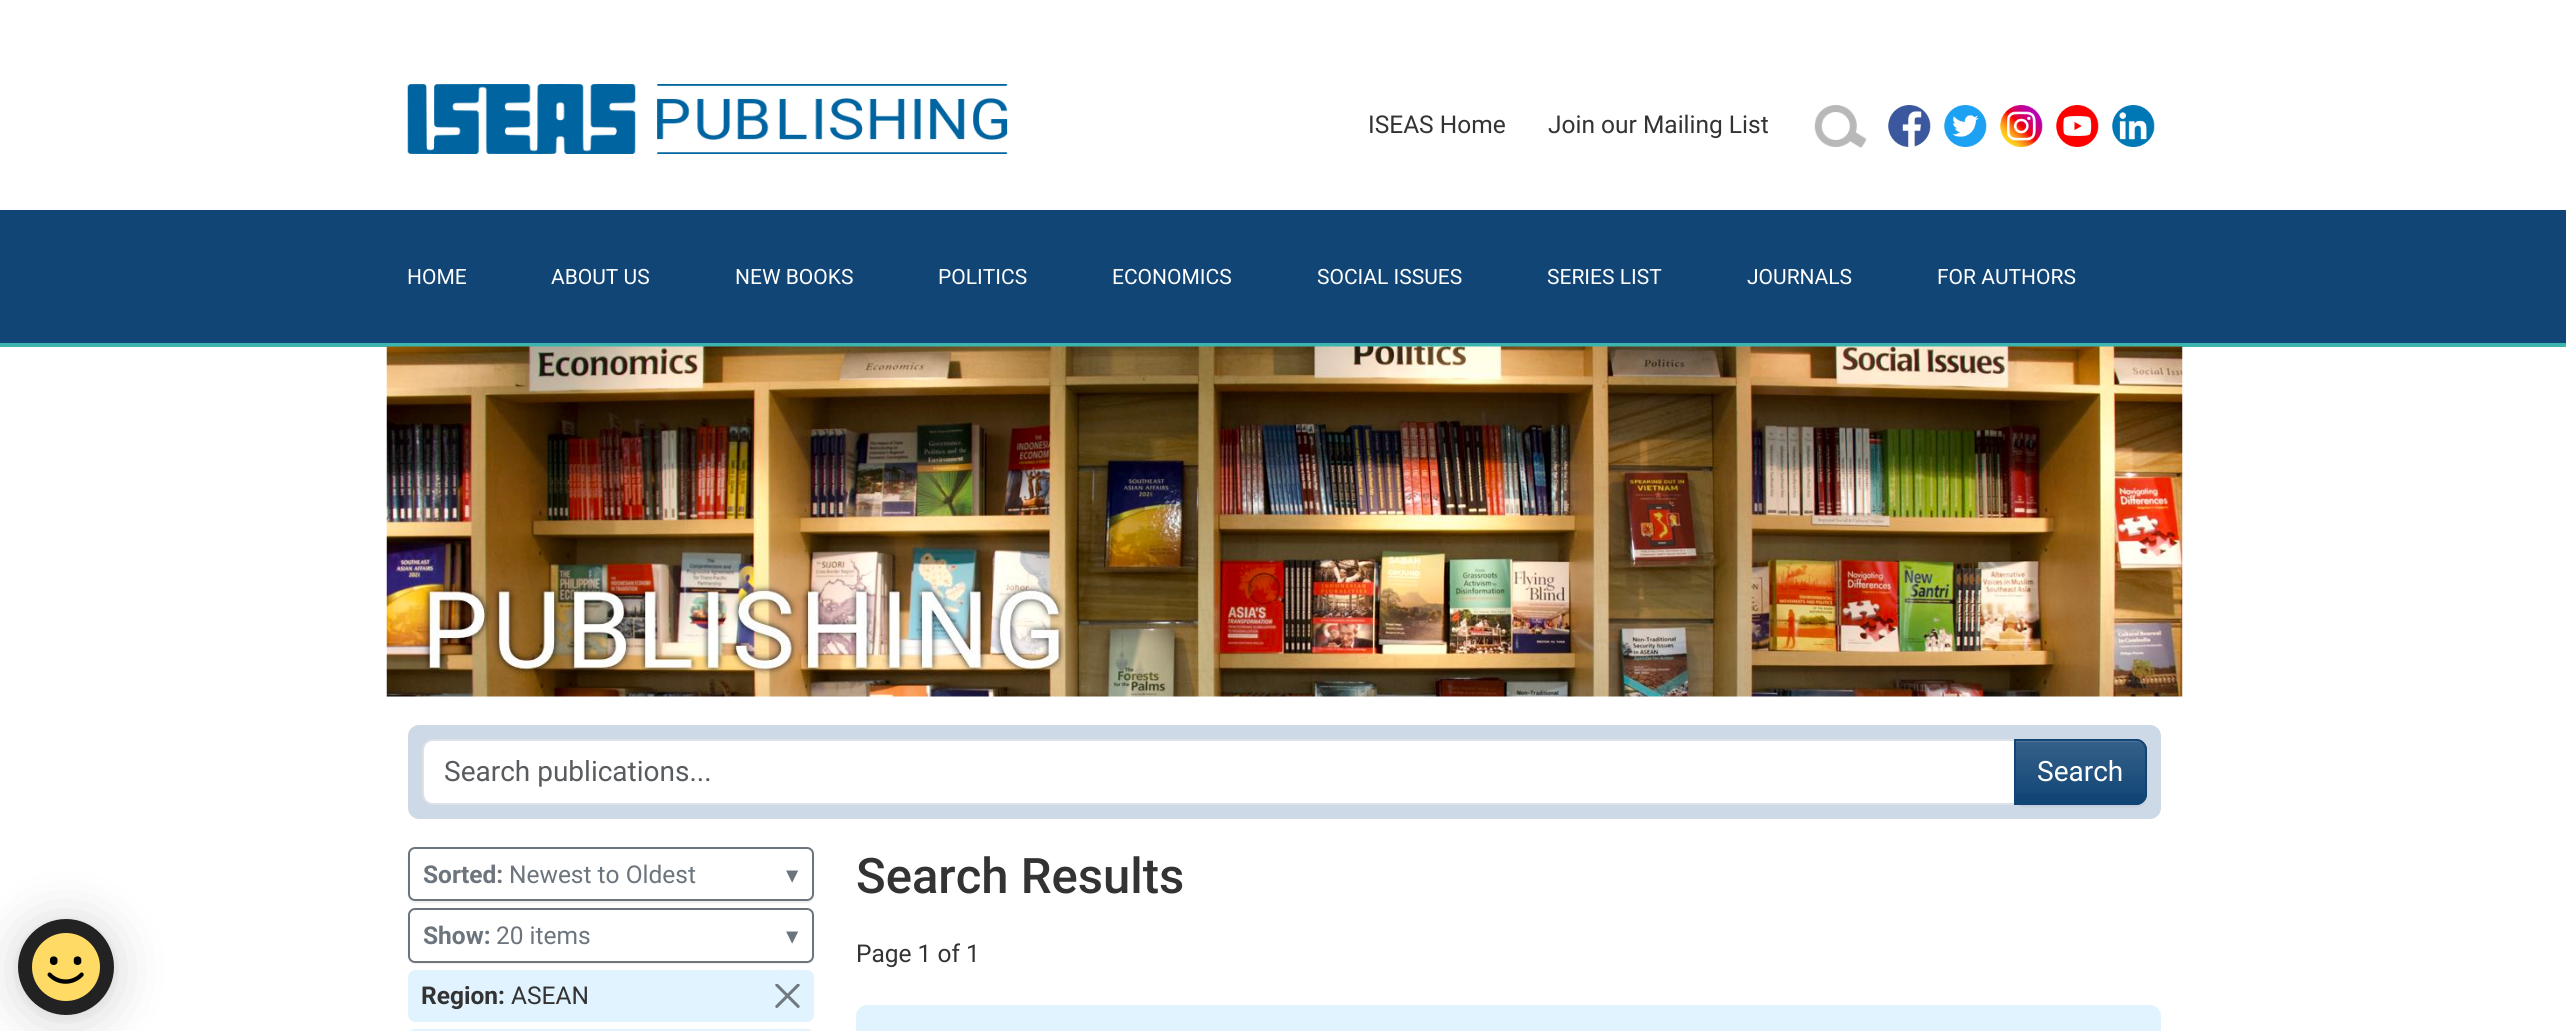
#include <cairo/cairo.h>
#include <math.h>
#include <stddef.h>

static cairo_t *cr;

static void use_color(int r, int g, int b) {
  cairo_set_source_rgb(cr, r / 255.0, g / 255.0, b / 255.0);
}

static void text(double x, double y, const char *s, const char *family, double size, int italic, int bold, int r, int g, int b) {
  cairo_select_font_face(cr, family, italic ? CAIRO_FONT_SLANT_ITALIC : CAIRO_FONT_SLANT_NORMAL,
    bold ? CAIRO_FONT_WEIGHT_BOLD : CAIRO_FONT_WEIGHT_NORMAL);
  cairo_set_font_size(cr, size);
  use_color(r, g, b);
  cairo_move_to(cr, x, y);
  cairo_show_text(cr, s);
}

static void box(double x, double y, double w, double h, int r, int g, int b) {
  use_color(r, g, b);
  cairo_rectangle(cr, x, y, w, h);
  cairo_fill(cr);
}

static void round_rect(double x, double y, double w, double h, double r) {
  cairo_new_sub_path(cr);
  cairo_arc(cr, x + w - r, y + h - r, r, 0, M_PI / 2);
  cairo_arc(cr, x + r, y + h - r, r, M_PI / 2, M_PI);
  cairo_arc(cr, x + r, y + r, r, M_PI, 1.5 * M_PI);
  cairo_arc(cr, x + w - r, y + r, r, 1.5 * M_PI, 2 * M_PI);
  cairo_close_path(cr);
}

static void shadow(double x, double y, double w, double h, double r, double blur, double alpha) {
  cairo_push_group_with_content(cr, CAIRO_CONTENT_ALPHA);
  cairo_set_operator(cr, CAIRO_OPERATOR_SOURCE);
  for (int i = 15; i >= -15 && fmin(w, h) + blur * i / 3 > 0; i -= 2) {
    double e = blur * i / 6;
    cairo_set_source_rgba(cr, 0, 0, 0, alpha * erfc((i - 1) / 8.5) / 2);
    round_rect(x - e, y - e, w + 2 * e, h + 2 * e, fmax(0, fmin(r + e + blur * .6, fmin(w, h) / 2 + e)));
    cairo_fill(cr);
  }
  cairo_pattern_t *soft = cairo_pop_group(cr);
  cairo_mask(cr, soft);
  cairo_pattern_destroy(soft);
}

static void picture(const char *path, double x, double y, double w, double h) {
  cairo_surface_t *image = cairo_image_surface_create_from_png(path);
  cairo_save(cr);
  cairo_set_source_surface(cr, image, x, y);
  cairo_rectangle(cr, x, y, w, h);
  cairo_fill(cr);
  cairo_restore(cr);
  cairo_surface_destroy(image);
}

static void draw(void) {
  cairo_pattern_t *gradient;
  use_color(255, 255, 255);
  cairo_paint(cr);
  picture("img_01.png", 407, 84, 601, 70);
  picture("img_02.png", 1814, 105, 53, 43);
  picture("img_03.png", 1888, 105, 43, 42);
  picture("img_04.png", 1944, 105, 43, 42);
  picture("img_05.png", 2000, 105, 43, 42);
  picture("img_06.png", 2056, 105, 43, 42);
  picture("img_07.png", 2112, 105, 43, 42);
  box(0, 210, 2566, 133, 17, 69, 117);
  box(0, 343, 2566, 4, 61, 181, 175);
  picture("img_08.png", 386, 346, 1797, 351);
  use_color(0, 0, 0);
  shadow(18, 922, 96, 97, 48, 28, 0.16);
  shadow(18, 921, 96, 96, 48, 5, 0.06);
  use_color(255, 219, 102);
  cairo_arc(cr, 66, 967, 41, 0, 2 * M_PI);
  cairo_fill_preserve(cr);
  use_color(34, 34, 34);
  cairo_set_line_width(cr, 14);
  cairo_stroke(cr);
  picture("img_09.png", 47, 956, 37, 28);
  use_color(206, 217, 231);
  round_rect(408, 725, 1753, 94, 11);
  cairo_fill(cr);
  use_color(255, 255, 255);
  cairo_new_path(cr);
  cairo_move_to(cr, 433, 740);
  cairo_line_to(cr, 2015, 740);
  cairo_line_to(cr, 2015, 804);
  cairo_line_to(cr, 433, 804);
  cairo_curve_to(cr, 427.5, 804, 423, 799.5, 423, 794);
  cairo_line_to(cr, 423, 750);
  cairo_curve_to(cr, 423, 744.5, 427.5, 740, 433, 740);
  cairo_close_path(cr);
  cairo_fill_preserve(cr);
  use_color(222, 226, 230);
  cairo_set_line_width(cr, 2);
  cairo_stroke(cr);
  use_color(0, 0, 0);
  shadow(2014, 740, 133, 67, 11, 1, 0.07);
  use_color(17, 69, 117);
  cairo_new_path(cr);
  cairo_move_to(cr, 2014, 739);
  cairo_line_to(cr, 2136, 739);
  cairo_curve_to(cr, 2142, 739, 2147, 744, 2147, 750);
  cairo_line_to(cr, 2147, 794);
  cairo_curve_to(cr, 2147, 800, 2142, 805, 2136, 805);
  cairo_line_to(cr, 2014, 805);
  cairo_close_path(cr);
  cairo_fill(cr);
  cairo_save(cr);
  cairo_new_path(cr);
  cairo_move_to(cr, 2014, 739);
  cairo_line_to(cr, 2136, 739);
  cairo_curve_to(cr, 2142, 739, 2147, 744, 2147, 750);
  cairo_line_to(cr, 2147, 794);
  cairo_curve_to(cr, 2147, 800, 2142, 805, 2136, 805);
  cairo_line_to(cr, 2014, 805);
  cairo_close_path(cr);
  cairo_clip(cr);
  gradient = cairo_pattern_create_linear(2081, 740, 2081, 803);
  cairo_pattern_add_color_stop_rgba(gradient, 0, 1, 1, 1, 0.15);
  cairo_pattern_add_color_stop_rgba(gradient, 1, 1, 1, 1, 0);
  cairo_set_source(cr, gradient);
  cairo_pattern_destroy(gradient);
  cairo_rectangle(cr, 2016, 740, 131, 54);
  cairo_fill(cr);
  cairo_restore(cr);
  cairo_set_source_rgba(cr, 1, 1, 1, 0.15);
  cairo_new_path(cr);
  cairo_move_to(cr, 2016, 742);
  cairo_line_to(cr, 2137, 742);
  cairo_curve_to(cr, 2142, 742, 2146, 746, 2146, 751);
  cairo_line_to(cr, 2146, 749);
  cairo_curve_to(cr, 2146, 744, 2142, 740, 2137, 740);
  cairo_line_to(cr, 2016, 740);
  cairo_close_path(cr);
  cairo_fill(cr);
  cairo_new_path(cr);
  cairo_move_to(cr, 2015, 740);
  cairo_line_to(cr, 2136, 740);
  cairo_curve_to(cr, 2141.5, 740, 2146, 744.5, 2146, 750);
  cairo_line_to(cr, 2146, 794);
  cairo_curve_to(cr, 2146, 799.5, 2141.5, 804, 2136, 804);
  cairo_line_to(cr, 2015, 804);
  cairo_close_path(cr);
  use_color(17, 69, 117);
  cairo_stroke(cr);
  cairo_save(cr);
  cairo_set_fill_rule(cr, CAIRO_FILL_RULE_EVEN_ODD);
  cairo_new_path(cr);
  cairo_move_to(cr, 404, 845);
  cairo_line_to(cr, 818, 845);
  cairo_line_to(cr, 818, 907);
  cairo_line_to(cr, 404, 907);
  cairo_close_path(cr);
  cairo_move_to(cr, 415, 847);
  cairo_line_to(cr, 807, 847);
  cairo_curve_to(cr, 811, 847, 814, 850, 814, 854);
  cairo_line_to(cr, 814, 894);
  cairo_curve_to(cr, 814, 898, 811, 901, 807, 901);
  cairo_line_to(cr, 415, 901);
  cairo_curve_to(cr, 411, 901, 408, 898, 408, 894);
  cairo_line_to(cr, 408, 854);
  cairo_curve_to(cr, 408, 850, 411, 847, 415, 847);
  cairo_close_path(cr);
  cairo_clip(cr);
  use_color(0, 0, 0);
  shadow(408, 849, 406, 54, 7, 1, 0.07);
  cairo_restore(cr);
  round_rect(409, 848, 404, 52, 6);
  use_color(108, 117, 125);
  cairo_stroke(cr);
  cairo_save(cr);
  cairo_set_fill_rule(cr, CAIRO_FILL_RULE_EVEN_ODD);
  cairo_new_path(cr);
  cairo_move_to(cr, 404, 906);
  cairo_line_to(cr, 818, 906);
  cairo_line_to(cr, 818, 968);
  cairo_line_to(cr, 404, 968);
  cairo_close_path(cr);
  cairo_move_to(cr, 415, 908);
  cairo_line_to(cr, 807, 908);
  cairo_curve_to(cr, 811, 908, 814, 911, 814, 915);
  cairo_line_to(cr, 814, 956);
  cairo_curve_to(cr, 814, 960, 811, 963, 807, 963);
  cairo_line_to(cr, 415, 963);
  cairo_curve_to(cr, 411, 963, 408, 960, 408, 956);
  cairo_line_to(cr, 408, 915);
  cairo_curve_to(cr, 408, 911, 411, 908, 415, 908);
  cairo_close_path(cr);
  cairo_clip(cr);
  use_color(0, 0, 0);
  shadow(408, 910, 406, 54, 7, 1, 0.07);
  cairo_restore(cr);
  round_rect(409, 909, 404, 53, 6);
  cairo_stroke(cr);
  use_color(225, 243, 255);
  round_rect(408, 970, 406, 52, 7);
  cairo_fill(cr);
  picture("img_10.png", 775, 984, 25, 24);
  round_rect(408, 1029, 406, 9, 7);
  cairo_fill(cr);
  use_color(227, 244, 255);
  cairo_new_path(cr);
  cairo_move_to(cr, 772, 971);
  cairo_line_to(cr, 803, 971);
  cairo_curve_to(cr, 809, 971, 814, 976, 814, 982);
  cairo_curve_to(cr, 814, 967, 798, 970, 788, 970);
  cairo_curve_to(cr, 777, 970, 761, 967, 761, 982);
  cairo_curve_to(cr, 761, 976, 766, 971, 772, 971);
  cairo_close_path(cr);
  cairo_move_to(cr, 772, 1031);
  cairo_line_to(cr, 803, 1031);
  cairo_curve_to(cr, 809, 1031, 814, 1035, 814, 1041);
  cairo_curve_to(cr, 814, 1026, 798, 1029, 788, 1029);
  cairo_curve_to(cr, 777, 1029, 761, 1026, 761, 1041);
  cairo_curve_to(cr, 761, 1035, 766, 1031, 772, 1031);
  cairo_close_path(cr);
  cairo_fill(cr);
  use_color(225, 243, 255);
  round_rect(856, 1005, 1305, 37, 11);
  cairo_fill(cr);
  text(1368, 133, "ISEAS Home", "Roboto", 24.5, 0, 0, 51, 51, 51);
  text(1548, 133, "Join our Mailing List", "Roboto", 24.5, 0, 0, 51, 51, 51);
  text(407, 284, "HOME", "Roboto", 21, 0, 0, 255, 255, 255);
  text(551, 284, "ABOUT US", "Roboto", 21, 0, 0, 255, 255, 255);
  text(735, 284, "NEW BOOKS", "Roboto", 21, 0, 0, 255, 255, 255);
  text(938, 284, "POLITICS", "Roboto", 21, 0, 0, 255, 255, 255);
  text(1112, 284, "ECONOMICS", "Roboto", 21, 0, 0, 255, 255, 255);
  text(1317, 284, "SOCIAL ISSUES", "Roboto", 21, 0, 0, 255, 255, 255);
  text(1547, 284, "SERIES LIST", "Roboto", 21, 0, 0, 255, 255, 255);
  text(1747, 284, "JOURNALS", "Roboto", 21, 0, 0, 255, 255, 255);
  text(1937, 284, "FOR AUTHORS", "Roboto", 21, 0, 0, 255, 255, 255);
  text(444, 781, "Search publications...", "Roboto", 28, 0, 0, 89, 92, 95);
  text(2037, 781, "Search", "Roboto", 28, 0, 0, 255, 255, 255);
  text(423, 883, "Sorted:", "Roboto", 24.5, 0, 1, 108, 117, 125);
  text(509, 883, "Newest to Oldest", "Roboto", 24.5, 0, 0, 108, 117, 125);
  text(786, 883, "▾", "DejaVu Sans", 24.5, 0, 0, 108, 117, 125);
  text(423, 944, "Show:", "Roboto", 24.5, 0, 1, 108, 117, 125);
  text(496, 944, "20 items", "Roboto", 24.5, 0, 0, 108, 117, 125);
  text(786, 944, "▾", "DejaVu Sans", 24.5, 0, 0, 108, 117, 125);
  text(421, 1004, "Region:", "Roboto", 24.5, 0, 1, 51, 51, 51);
  text(511, 1004, "ASEAN", "Roboto", 24.5, 0, 0, 51, 51, 51);
  text(856, 893, "Search Results", "Roboto Medium", 49, 0, 0, 51, 51, 51);
  text(856, 962, "Page 1 of 1", "Roboto", 24.5, 0, 0, 51, 51, 51);
}

int main(void) {
  cairo_surface_t *surface = cairo_image_surface_create(CAIRO_FORMAT_RGB24, 2566, 1031);
  cr = cairo_create(surface);
  cairo_font_options_t *options = cairo_font_options_create();
  cairo_font_options_set_hint_metrics(options, CAIRO_HINT_METRICS_OFF);
  cairo_font_options_set_hint_style(options, CAIRO_HINT_STYLE_NONE);
  cairo_set_font_options(cr, options);
  cairo_set_miter_limit(cr, 4);
  draw();
  cairo_surface_write_to_png(surface, "out.png");
  cairo_font_options_destroy(options);
  cairo_destroy(cr);
  cairo_surface_destroy(surface);
  return 0;
}
